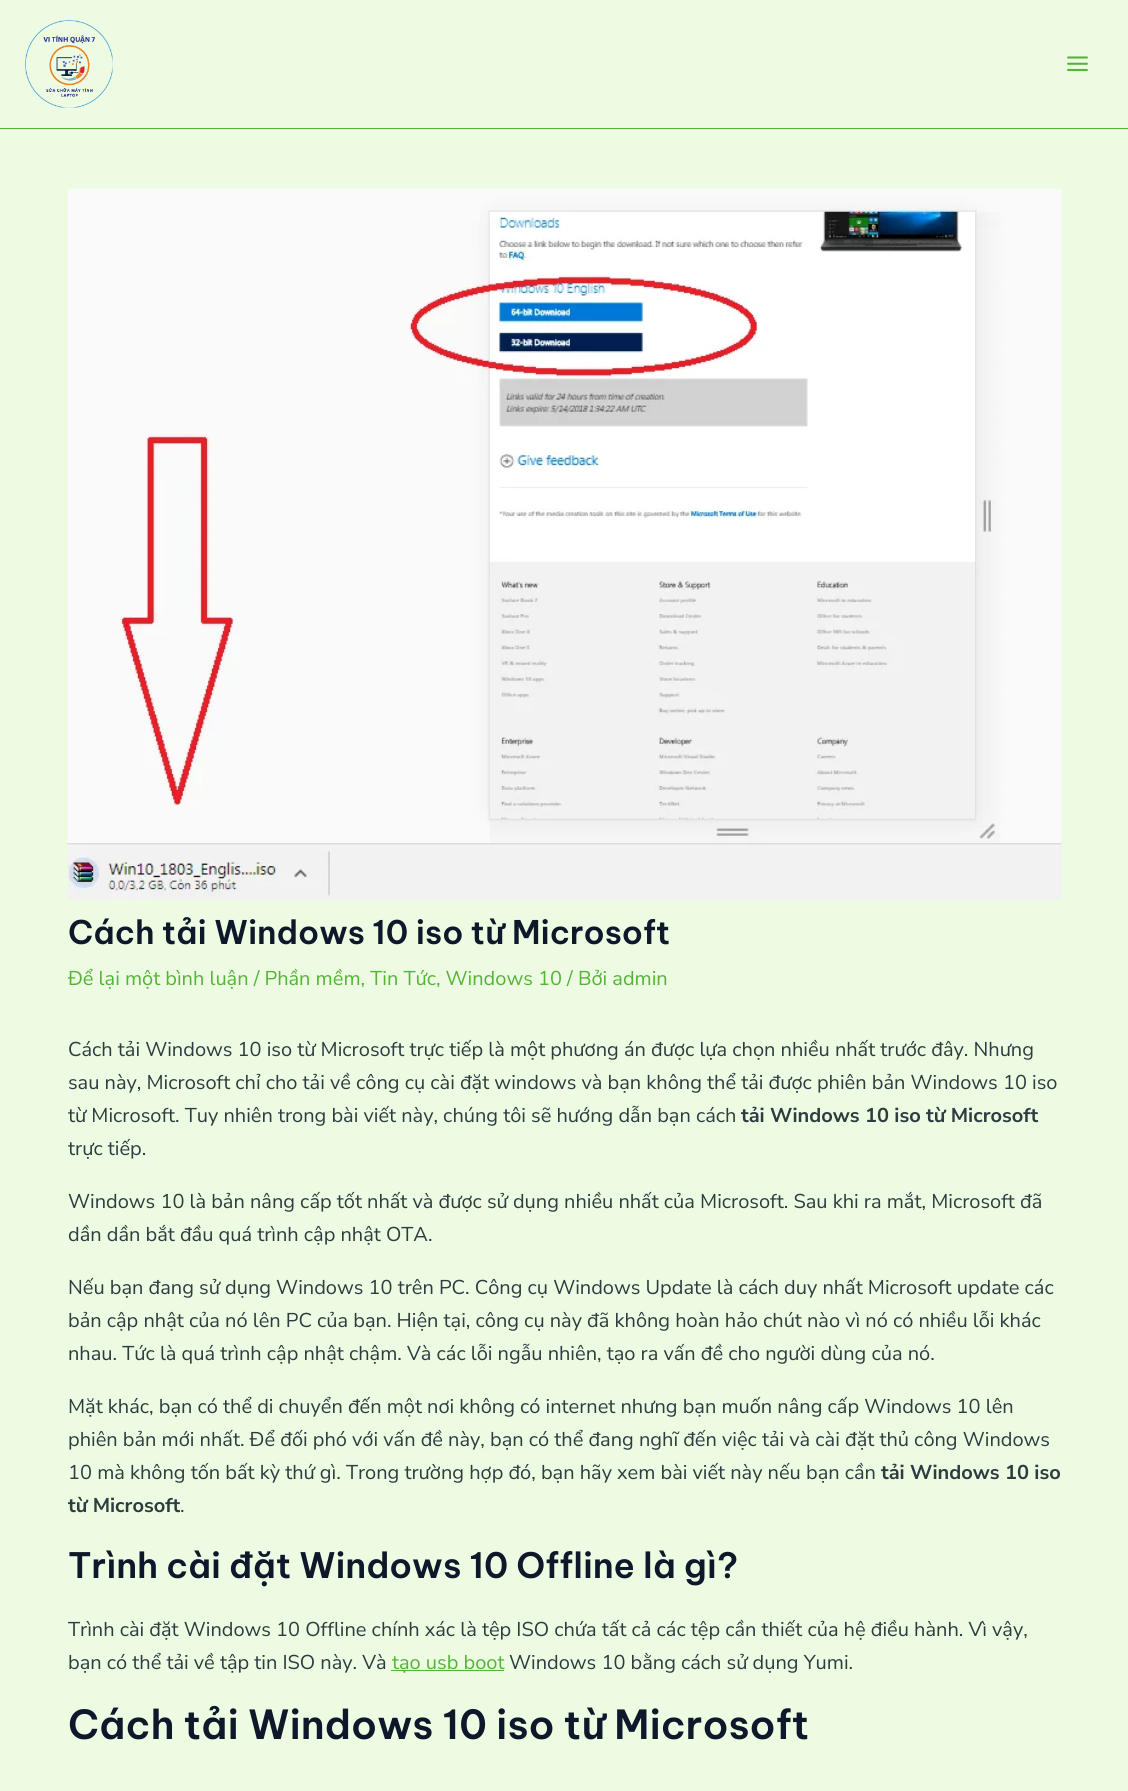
#include <cairo/cairo.h>
#include <math.h>
#include <stddef.h>

static cairo_t *cr;

static void use_color(int r, int g, int b) {
  cairo_set_source_rgb(cr, r / 255.0, g / 255.0, b / 255.0);
}

static void text(double x, double y, const char *s, const char *family, double size, int italic, int bold, int r, int g, int b) {
  cairo_select_font_face(cr, family, italic ? CAIRO_FONT_SLANT_ITALIC : CAIRO_FONT_SLANT_NORMAL,
    bold ? CAIRO_FONT_WEIGHT_BOLD : CAIRO_FONT_WEIGHT_NORMAL);
  cairo_set_font_size(cr, size);
  use_color(r, g, b);
  cairo_move_to(cr, x, y);
  cairo_show_text(cr, s);
}

static void box(double x, double y, double w, double h, int r, int g, int b) {
  use_color(r, g, b);
  cairo_rectangle(cr, x, y, w, h);
  cairo_fill(cr);
}

static void picture(const char *path, double x, double y, double w, double h) {
  cairo_surface_t *image = cairo_image_surface_create_from_png(path);
  cairo_save(cr);
  cairo_set_source_surface(cr, image, x, y);
  cairo_rectangle(cr, x, y, w, h);
  cairo_fill(cr);
  cairo_restore(cr);
  cairo_surface_destroy(image);
}

static void draw(void) {
  use_color(237, 251, 226);
  cairo_paint(cr);
  box(0, 128, 1128, 1, 84, 180, 53);
  picture("img_01.png", 25, 20, 88, 88);
  picture("img_02.png", 1067, 56, 21, 16);
  picture("img_03.png", 67, 188, 995, 712);
  box(391, 1670, 113, 1, 84, 180, 53);
  text(68, 944, "Cách tải Windows 10 iso từ Microsoft", "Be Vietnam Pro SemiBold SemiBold", 32.5, 0, 0, 15, 23, 42);
  text(68, 985, "Để lại một bình luận / Phần mềm, Tin Tức, Windows 10 / Bởi admin", "Nunito Sans", 20, 0, 0, 84, 180, 53);
  text(68, 1056, "Cách tải Windows 10 iso từ Microsoft trực tiếp là một phương án được lựa chọn nhiều nhất trước đây. Nhưng", "Nunito Sans", 20, 0, 0, 47, 59, 64);
  text(68, 1089, "sau này, Microsoft chỉ cho tải về công cụ cài đặt windows và bạn không thể tải được phiên bản Windows 10 iso", "Nunito Sans", 20, 0, 0, 47, 59, 64);
  text(68, 1122, "từ Microsoft. Tuy nhiên trong bài viết này, chúng tôi sẽ hướng dẫn bạn cách", "Nunito Sans", 20, 0, 0, 47, 59, 64);
  text(741, 1122, "tải Windows 10 iso từ Microsoft", "Nunito Sans", 20, 0, 1, 47, 59, 64);
  text(68, 1155, "trực tiếp.", "Nunito Sans", 20, 0, 0, 47, 59, 64);
  text(68, 1208, "Windows 10 là bản nâng cấp tốt nhất và được sử dụng nhiều nhất của Microsoft. Sau khi ra mắt, Microsoft đã", "Nunito Sans", 20, 0, 0, 47, 59, 64);
  text(68, 1241, "dần dần bắt đầu quá trình cập nhật OTA.", "Nunito Sans", 20, 0, 0, 47, 59, 64);
  text(68, 1294, "Nếu bạn đang sử dụng Windows 10 trên PC. Công cụ Windows Update là cách duy nhất Microsoft update các", "Nunito Sans", 20, 0, 0, 47, 59, 64);
  text(68, 1327, "bản cập nhật của nó lên PC của bạn. Hiện tại, công cụ này đã không hoàn hảo chút nào vì nó có nhiều lỗi khác", "Nunito Sans", 20, 0, 0, 47, 59, 64);
  text(68, 1360, "nhau. Tức là quá trình cập nhật chậm. Và các lỗi ngẫu nhiên, tạo ra vấn đề cho người dùng của nó.", "Nunito Sans", 20, 0, 0, 47, 59, 64);
  text(68, 1413, "Mặt khác, bạn có thể di chuyển đến một nơi không có internet nhưng bạn muốn nâng cấp Windows 10 lên", "Nunito Sans", 20, 0, 0, 47, 59, 64);
  text(68, 1446, "phiên bản mới nhất. Để đối phó với vấn đề này, bạn có thể đang nghĩ đến việc tải và cài đặt thủ công Windows", "Nunito Sans", 20, 0, 0, 47, 59, 64);
  text(68, 1479, "10 mà không tốn bất kỳ thứ gì. Trong trường hợp đó, bạn hãy xem bài viết này nếu bạn cần", "Nunito Sans", 20, 0, 0, 47, 59, 64);
  text(881, 1479, "tải Windows 10 iso", "Nunito Sans", 20, 0, 1, 47, 59, 64);
  text(68, 1512, "từ Microsoft", "Nunito Sans", 20, 0, 1, 47, 59, 64);
  text(180, 1512, ".", "Nunito Sans", 20, 0, 0, 47, 59, 64);
  text(68, 1578, "Trình cài đặt Windows 10 Offline là gì?", "Be Vietnam Pro SemiBold SemiBold", 35, 0, 0, 15, 23, 42);
  text(68, 1636, "Trình cài đặt Windows 10 Offline chính xác là tệp ISO chứa tất cả các tệp cần thiết của hệ điều hành. Vì vậy,", "Nunito Sans", 20, 0, 0, 47, 59, 64);
  text(68, 1669, "bạn có thể tải về tập tin ISO này. Và", "Nunito Sans", 20, 0, 0, 47, 59, 64);
  text(392, 1669, "tạo usb boot", "Nunito Sans", 20, 0, 0, 84, 180, 53);
  text(509, 1669, "Windows 10 bằng cách sử dụng Yumi.", "Nunito Sans", 20, 0, 0, 47, 59, 64);
  text(68, 1739, "Cách tải Windows 10 iso từ Microsoft", "Be Vietnam Pro SemiBold SemiBold", 40, 0, 0, 15, 23, 42);
}

int main(void) {
  cairo_surface_t *surface = cairo_image_surface_create(CAIRO_FORMAT_RGB24, 1128, 1791);
  cr = cairo_create(surface);
  cairo_font_options_t *options = cairo_font_options_create();
  cairo_font_options_set_hint_metrics(options, CAIRO_HINT_METRICS_OFF);
  cairo_font_options_set_hint_style(options, CAIRO_HINT_STYLE_NONE);
  cairo_set_font_options(cr, options);
  cairo_set_miter_limit(cr, 4);
  draw();
  cairo_surface_write_to_png(surface, "out.png");
  cairo_font_options_destroy(options);
  cairo_destroy(cr);
  cairo_surface_destroy(surface);
  return 0;
}
